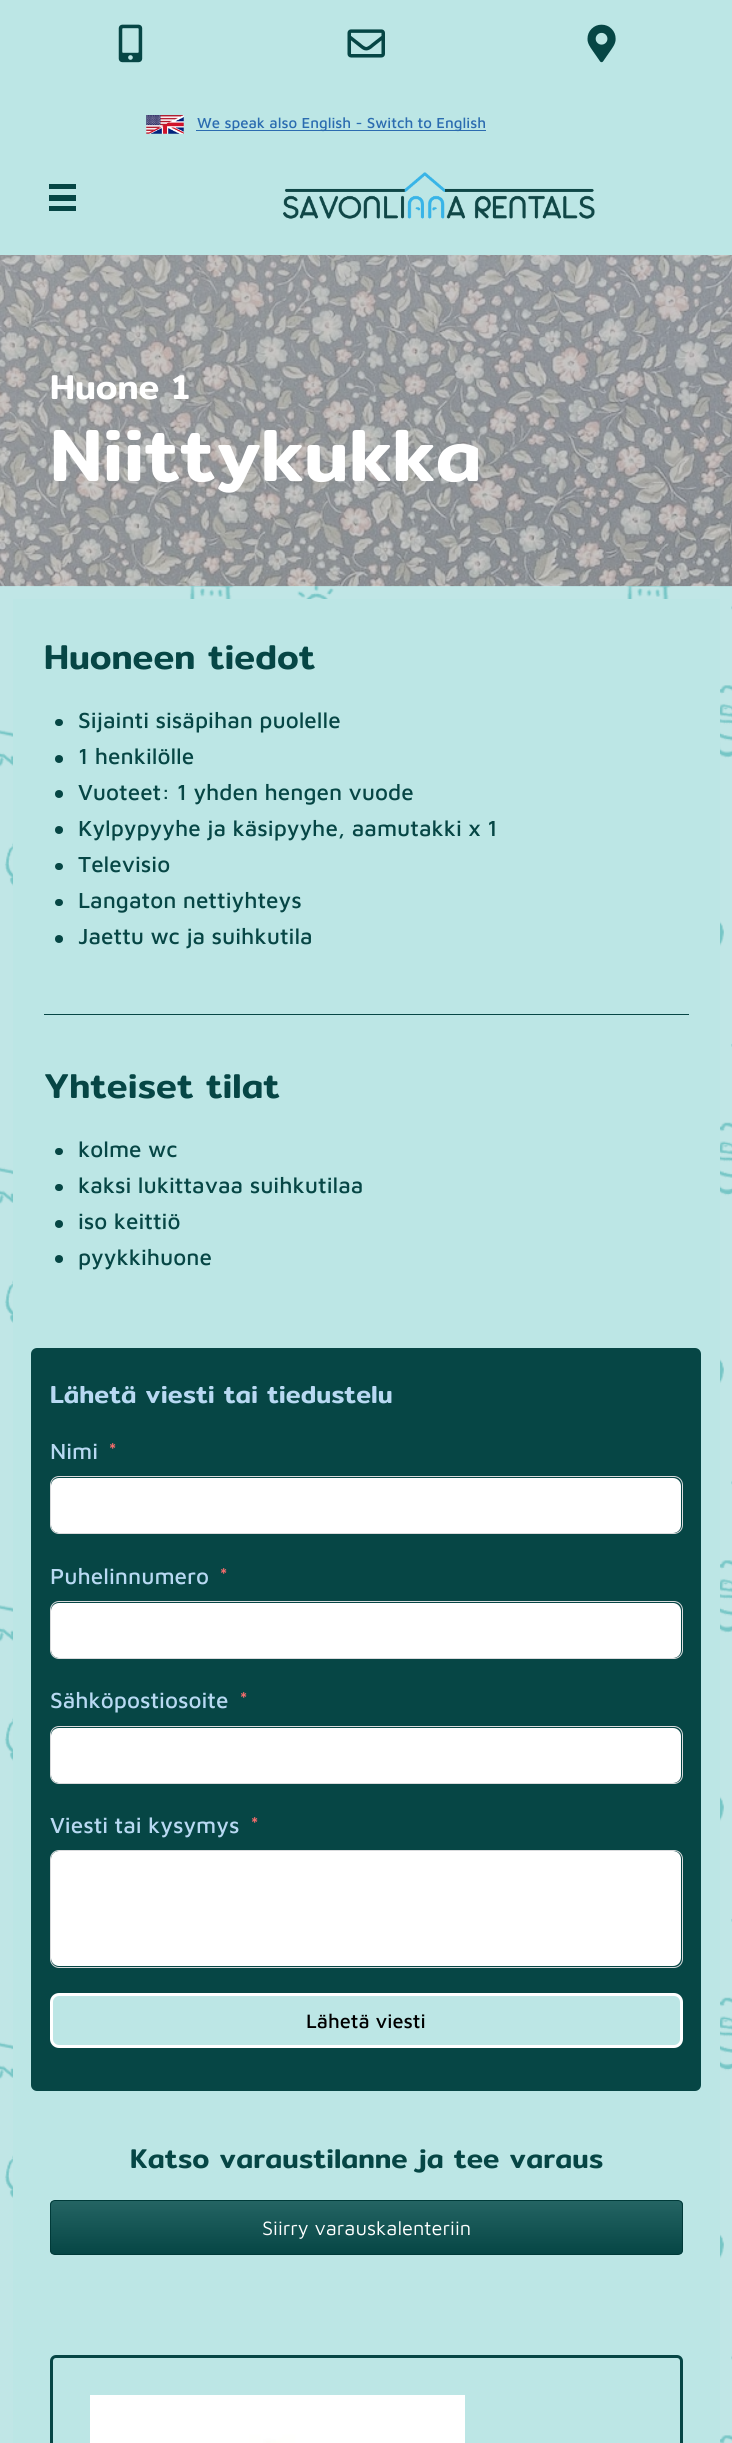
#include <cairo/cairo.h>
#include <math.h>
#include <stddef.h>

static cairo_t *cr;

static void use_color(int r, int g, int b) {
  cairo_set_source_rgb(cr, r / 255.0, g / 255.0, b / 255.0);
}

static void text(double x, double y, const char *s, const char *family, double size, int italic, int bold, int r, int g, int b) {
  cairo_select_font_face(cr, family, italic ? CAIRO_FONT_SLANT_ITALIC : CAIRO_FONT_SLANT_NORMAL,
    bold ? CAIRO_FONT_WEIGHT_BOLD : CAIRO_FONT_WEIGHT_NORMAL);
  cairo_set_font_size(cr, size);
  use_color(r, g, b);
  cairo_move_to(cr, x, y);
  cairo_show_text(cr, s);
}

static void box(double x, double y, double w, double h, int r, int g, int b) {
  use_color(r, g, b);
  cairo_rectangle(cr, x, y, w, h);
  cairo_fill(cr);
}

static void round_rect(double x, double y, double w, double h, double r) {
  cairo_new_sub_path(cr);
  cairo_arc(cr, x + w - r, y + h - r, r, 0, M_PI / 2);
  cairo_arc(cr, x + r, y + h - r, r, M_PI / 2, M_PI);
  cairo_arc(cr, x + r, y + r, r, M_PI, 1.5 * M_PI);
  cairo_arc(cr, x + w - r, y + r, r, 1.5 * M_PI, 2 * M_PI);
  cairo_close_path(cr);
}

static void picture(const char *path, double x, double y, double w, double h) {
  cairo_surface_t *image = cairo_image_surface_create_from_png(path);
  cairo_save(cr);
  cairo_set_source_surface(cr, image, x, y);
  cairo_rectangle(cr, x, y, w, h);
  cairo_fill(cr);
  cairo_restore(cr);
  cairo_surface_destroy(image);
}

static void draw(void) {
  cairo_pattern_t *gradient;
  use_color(188, 230, 229);
  cairo_paint(cr);
  picture("img_01.png", 118, 24, 25, 39);
  picture("img_02.png", 347, 29, 38, 29);
  picture("img_03.png", 587, 24, 29, 39);
  picture("img_04.png", 146, 115, 38, 19);
  box(196, 130, 290, 1, 43, 108, 176);
  box(49, 184, 27, 5, 6, 70, 69);
  box(49, 195, 27, 6, 6, 70, 69);
  box(49, 206, 27, 5, 6, 70, 69);
  picture("img_05.png", 283, 172, 312, 47);
  picture("img_06.png", 0, 255, 732, 332);
  picture("img_07.png", 0, 586, 732, 1857);
  box(13, 599, 707, 1844, 188, 230, 229);
  use_color(6, 70, 68);
  round_rect(55, 719, 8, 7, 3.5);
  cairo_fill(cr);
  cairo_arc(cr, 59, 759, 4, 0, 2 * M_PI);
  cairo_fill(cr);
  cairo_arc(cr, 59, 794, 4, 0, 2 * M_PI);
  cairo_fill(cr);
  cairo_arc(cr, 59, 830, 4, 0, 2 * M_PI);
  cairo_fill(cr);
  round_rect(55, 863, 8, 7, 3.5);
  cairo_fill(cr);
  round_rect(55, 899, 8, 7, 3.5);
  cairo_fill(cr);
  cairo_arc(cr, 59, 939, 4, 0, 2 * M_PI);
  cairo_fill(cr);
  box(44, 1014, 645, 1, 6, 70, 69);
  use_color(6, 70, 68);
  round_rect(55, 1148, 8, 7, 3.5);
  cairo_fill(cr);
  round_rect(55, 1184, 8, 7, 3.5);
  cairo_fill(cr);
  cairo_arc(cr, 59, 1224, 4, 0, 2 * M_PI);
  cairo_fill(cr);
  cairo_arc(cr, 59, 1259, 4, 0, 2 * M_PI);
  cairo_fill(cr);
  use_color(6, 70, 69);
  round_rect(31, 1348, 670, 743, 6);
  cairo_fill(cr);
  use_color(255, 255, 255);
  round_rect(51, 1478, 630, 55, 8);
  cairo_fill(cr);
  round_rect(50.5, 1476.5, 632, 57, 8.5);
  use_color(218, 219, 221);
  cairo_set_line_width(cr, 1);
  cairo_stroke(cr);
  use_color(255, 255, 255);
  round_rect(51, 1603, 630, 55, 8);
  cairo_fill(cr);
  round_rect(50.5, 1601.5, 632, 57, 8.5);
  use_color(218, 219, 221);
  cairo_stroke(cr);
  use_color(255, 255, 255);
  round_rect(51, 1728, 630, 55, 8);
  cairo_fill(cr);
  round_rect(50.5, 1726.5, 632, 57, 8.5);
  use_color(218, 219, 221);
  cairo_stroke(cr);
  use_color(255, 255, 255);
  round_rect(51, 1851, 630, 115, 8);
  cairo_fill(cr);
  round_rect(50.5, 1850.5, 632, 117, 8.5);
  use_color(218, 219, 221);
  cairo_stroke(cr);
  use_color(188, 230, 229);
  round_rect(51.5, 1994.5, 630, 52, 7.5);
  cairo_fill_preserve(cr);
  use_color(255, 255, 255);
  cairo_set_line_width(cr, 3);
  cairo_stroke(cr);
  cairo_save(cr);
  round_rect(50, 2200, 633, 55, 5);
  cairo_clip(cr);
  gradient = cairo_pattern_create_linear(366, 2201, 366, 2254);
  cairo_pattern_add_color_stop_rgba(gradient, 0, 0.141, 0.392, 0.388, 1);
  cairo_pattern_add_color_stop_rgba(gradient, 1, 0.024, 0.275, 0.271, 1);
  cairo_set_source(cr, gradient);
  cairo_pattern_destroy(gradient);
  cairo_rectangle(cr, 50, 2201, 633, 53);
  cairo_fill(cr);
  cairo_restore(cr);
  round_rect(50.5, 2200.5, 632, 54, 4.5);
  use_color(0, 58, 57);
  cairo_set_line_width(cr, 1);
  cairo_stroke(cr);
  round_rect(51.5, 2356.5, 630, 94, 4.5);
  use_color(6, 70, 69);
  cairo_set_line_width(cr, 3);
  cairo_stroke(cr);
  picture("img_08.png", 90, 2395, 375, 48);
  text(197, 128, "We speak also English - Switch to English", "Maven Pro Medium", 15, 0, 0, 43, 108, 176);
  text(50, 399, "Huone 1", "Mitr Medium", 35, 0, 0, 255, 255, 255);
  text(50, 481, "Niittykukka", "Mitr Medium", 75, 0, 0, 255, 255, 255);
  text(44, 669, "Huoneen tiedot", "Mitr Medium", 35, 0, 0, 6, 70, 69);
  text(78, 728, "Sijainti sisäpihan puolelle", "Maven Pro Medium", 22.5, 0, 0, 6, 70, 69);
  text(78, 764, "1 henkilölle", "Maven Pro Medium", 22.5, 0, 0, 6, 70, 69);
  text(78, 800, "Vuoteet: 1 yhden hengen vuode", "Maven Pro Medium", 22.5, 0, 0, 6, 70, 69);
  text(78, 836, "Kylpypyyhe ja käsipyyhe, aamutakki x 1", "Maven Pro Medium", 22.5, 0, 0, 6, 70, 69);
  text(78, 872, "Televisio", "Maven Pro Medium", 22.5, 0, 0, 6, 70, 69);
  text(78, 908, "Langaton nettiyhteys", "Maven Pro Medium", 22.5, 0, 0, 6, 70, 69);
  text(78, 944, "Jaettu wc ja suihkutila", "Maven Pro Medium", 22.5, 0, 0, 6, 70, 69);
  text(44, 1098, "Yhteiset tilat", "Mitr Medium", 35, 0, 0, 6, 70, 69);
  text(78, 1157, "kolme wc", "Maven Pro Medium", 22.5, 0, 0, 6, 70, 69);
  text(78, 1193, "kaksi lukittavaa suihkutilaa", "Maven Pro Medium", 22.5, 0, 0, 6, 70, 69);
  text(78, 1229, "iso keittiö", "Maven Pro Medium", 22.5, 0, 0, 6, 70, 69);
  text(78, 1265, "pyykkihuone", "Maven Pro Medium", 22.5, 0, 0, 6, 70, 69);
  text(50, 1403, "Lähetä viesti tai tiedustelu", "Mitr Medium", 25, 0, 0, 184, 217, 242);
  text(50, 1459, "Nimi", "Maven Pro Medium", 22.5, 0, 0, 184, 217, 242);
  text(108, 1459, "*", "Maven Pro Medium", 22.5, 0, 0, 245, 108, 108);
  text(50, 1584, "Puhelinnumero", "Maven Pro Medium", 22.5, 0, 0, 184, 217, 242);
  text(219, 1584, "*", "Maven Pro Medium", 22.5, 0, 0, 245, 108, 108);
  text(50, 1708, "Sähköpostiosoite", "Maven Pro Medium", 22.5, 0, 0, 184, 217, 242);
  text(239, 1708, "*", "Maven Pro Medium", 22.5, 0, 0, 245, 108, 108);
  text(50, 1833, "Viesti tai kysymys", "Maven Pro Medium", 22.5, 0, 0, 184, 217, 242);
  text(250, 1833, "*", "Maven Pro Medium", 22.5, 0, 0, 245, 108, 108);
  text(306, 2028, "Lähetä viesti", "Maven Pro Medium", 20, 0, 0, 0, 0, 0);
  text(130, 2168, "Katso varaustilanne ja tee varaus", "Mitr Medium", 27.5, 0, 0, 6, 70, 69);
  text(262, 2235, "Siirry varauskalenteriin", "Maven Pro", 20, 0, 0, 255, 255, 255);
}

int main(void) {
  cairo_surface_t *surface = cairo_image_surface_create(CAIRO_FORMAT_RGB24, 732, 2443);
  cr = cairo_create(surface);
  cairo_font_options_t *options = cairo_font_options_create();
  cairo_font_options_set_hint_metrics(options, CAIRO_HINT_METRICS_OFF);
  cairo_font_options_set_hint_style(options, CAIRO_HINT_STYLE_NONE);
  cairo_set_font_options(cr, options);
  cairo_set_miter_limit(cr, 4);
  draw();
  cairo_surface_write_to_png(surface, "out.png");
  cairo_font_options_destroy(options);
  cairo_destroy(cr);
  cairo_surface_destroy(surface);
  return 0;
}
